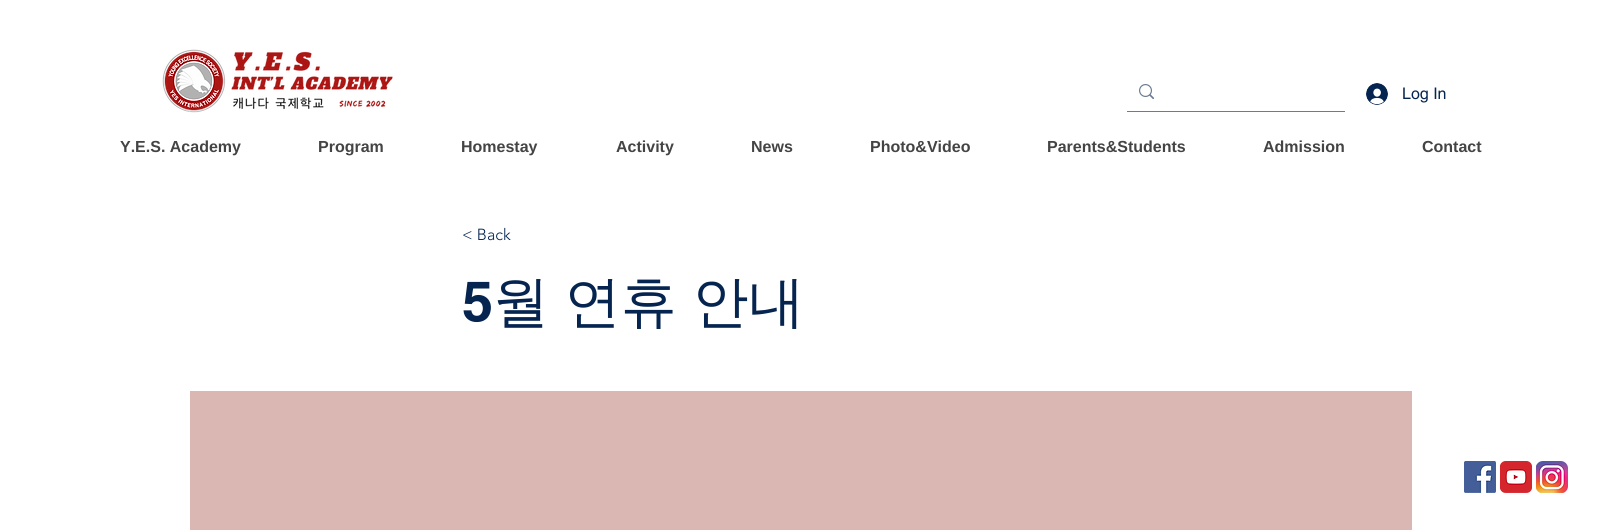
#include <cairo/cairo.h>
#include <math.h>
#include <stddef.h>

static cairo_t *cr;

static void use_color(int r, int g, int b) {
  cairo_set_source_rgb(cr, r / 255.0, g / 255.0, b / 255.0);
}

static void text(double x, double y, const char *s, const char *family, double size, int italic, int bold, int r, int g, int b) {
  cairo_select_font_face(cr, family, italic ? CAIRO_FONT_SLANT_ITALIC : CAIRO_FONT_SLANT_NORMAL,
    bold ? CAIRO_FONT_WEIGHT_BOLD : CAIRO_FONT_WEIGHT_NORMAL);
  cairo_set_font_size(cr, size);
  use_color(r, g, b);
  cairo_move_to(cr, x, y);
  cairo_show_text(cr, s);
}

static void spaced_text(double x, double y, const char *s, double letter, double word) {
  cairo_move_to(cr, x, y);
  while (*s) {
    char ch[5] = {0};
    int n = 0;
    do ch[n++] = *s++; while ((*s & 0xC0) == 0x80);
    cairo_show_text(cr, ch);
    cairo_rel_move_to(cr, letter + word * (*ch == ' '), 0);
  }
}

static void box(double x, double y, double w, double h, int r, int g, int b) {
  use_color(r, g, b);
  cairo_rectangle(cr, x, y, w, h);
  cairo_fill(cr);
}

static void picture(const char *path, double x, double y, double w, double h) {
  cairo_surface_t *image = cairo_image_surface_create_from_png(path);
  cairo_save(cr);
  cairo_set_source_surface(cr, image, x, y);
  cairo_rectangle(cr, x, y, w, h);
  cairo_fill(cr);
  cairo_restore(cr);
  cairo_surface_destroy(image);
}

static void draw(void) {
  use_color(255, 255, 255);
  cairo_paint(cr);
  picture("img_01.png", 162, 49, 231, 64);
  box(1127, 111, 218, 1, 105, 124, 149);
  picture("img_02.png", 1139, 84, 15, 15);
  picture("img_03.png", 1366, 83, 22, 22);
  box(190, 391, 1222, 139, 219, 183, 180);
  picture("img_04.png", 1464, 461, 32, 32);
  picture("img_05.png", 1500, 461, 32, 32);
  picture("img_06.png", 1536, 461, 32, 32);
  text(1402, 99, "Log In", "helvetica", 16, 0, 0, 5, 36, 79);
  text(120, 152, "Y.E.S. Academy", "Liberation Sans", 16, 0, 1, 68, 68, 68);
  text(318, 152, "Program", "Liberation Sans", 16, 0, 1, 68, 68, 68);
  text(461, 152, "Homestay", "Liberation Sans", 16, 0, 1, 68, 68, 68);
  text(616, 152, "Activity", "Liberation Sans", 16, 0, 1, 68, 68, 68);
  text(751, 152, "News", "Liberation Sans", 16, 0, 1, 68, 68, 68);
  text(870, 152, "Photo&Video", "Liberation Sans", 16, 0, 1, 68, 68, 68);
  text(1047, 152, "Parents&Students", "Liberation Sans", 16, 0, 1, 68, 68, 68);
  text(1263, 152, "Admission", "Liberation Sans", 16, 0, 1, 68, 68, 68);
  text(1422, 152, "Contact", "Liberation Sans", 16, 0, 1, 68, 68, 68);
  text(462, 240, "< Back", "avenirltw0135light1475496 Light", 16, 0, 0, 5, 36, 79);
  text(462, 321, "5", "helvetica", 56, 0, 1, 5, 36, 79);
  cairo_select_font_face(cr, "WenQuanYi Zen Hei Medium", CAIRO_FONT_SLANT_NORMAL, CAIRO_FONT_WEIGHT_NORMAL);
  spaced_text(493, 321, "월 연휴 안내", 0, -1);
}

int main(void) {
  cairo_surface_t *surface = cairo_image_surface_create(CAIRO_FORMAT_RGB24, 1602, 530);
  cr = cairo_create(surface);
  cairo_font_options_t *options = cairo_font_options_create();
  cairo_font_options_set_hint_metrics(options, CAIRO_HINT_METRICS_OFF);
  cairo_font_options_set_hint_style(options, CAIRO_HINT_STYLE_NONE);
  cairo_set_font_options(cr, options);
  cairo_set_miter_limit(cr, 4);
  draw();
  cairo_surface_write_to_png(surface, "out.png");
  cairo_font_options_destroy(options);
  cairo_destroy(cr);
  cairo_surface_destroy(surface);
  return 0;
}
